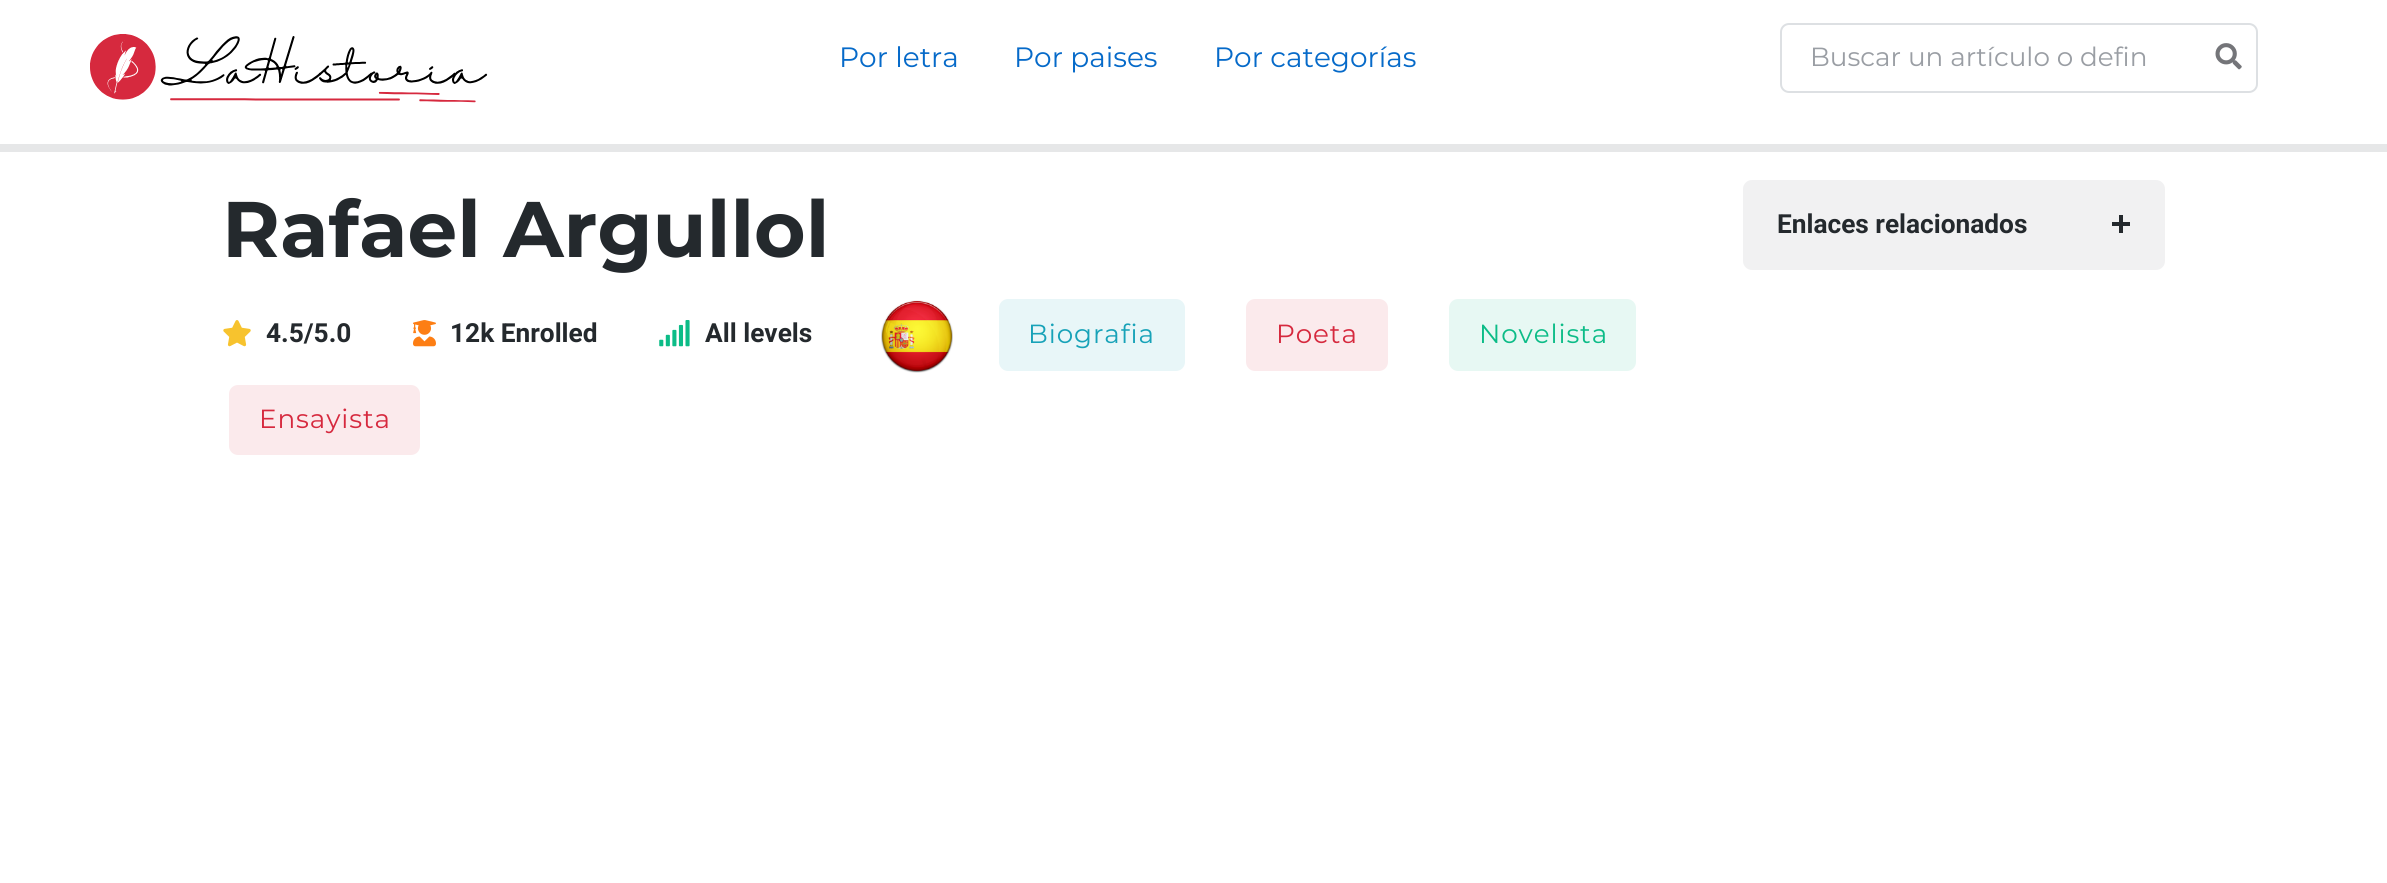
#include <cairo/cairo.h>
#include <math.h>
#include <stddef.h>

static cairo_t *cr;

static void use_color(int r, int g, int b) {
  cairo_set_source_rgb(cr, r / 255.0, g / 255.0, b / 255.0);
}

static void text(double x, double y, const char *s, const char *family, double size, int italic, int bold, int r, int g, int b) {
  cairo_select_font_face(cr, family, italic ? CAIRO_FONT_SLANT_ITALIC : CAIRO_FONT_SLANT_NORMAL,
    bold ? CAIRO_FONT_WEIGHT_BOLD : CAIRO_FONT_WEIGHT_NORMAL);
  cairo_set_font_size(cr, size);
  use_color(r, g, b);
  cairo_move_to(cr, x, y);
  cairo_show_text(cr, s);
}

static void spaced_text(double x, double y, const char *s, double letter, double word) {
  cairo_move_to(cr, x, y);
  while (*s) {
    char ch[5] = {0};
    int n = 0;
    do ch[n++] = *s++; while ((*s & 0xC0) == 0x80);
    cairo_show_text(cr, ch);
    cairo_rel_move_to(cr, letter + word * (*ch == ' '), 0);
  }
}

static void box(double x, double y, double w, double h, int r, int g, int b) {
  use_color(r, g, b);
  cairo_rectangle(cr, x, y, w, h);
  cairo_fill(cr);
}

static void round_rect(double x, double y, double w, double h, double r) {
  cairo_new_sub_path(cr);
  cairo_arc(cr, x + w - r, y + h - r, r, 0, M_PI / 2);
  cairo_arc(cr, x + r, y + h - r, r, M_PI / 2, M_PI);
  cairo_arc(cr, x + r, y + r, r, M_PI, 1.5 * M_PI);
  cairo_arc(cr, x + w - r, y + r, r, 1.5 * M_PI, 2 * M_PI);
  cairo_close_path(cr);
}

static void picture(const char *path, double x, double y, double w, double h) {
  cairo_surface_t *image = cairo_image_surface_create_from_png(path);
  cairo_save(cr);
  cairo_set_source_surface(cr, image, x, y);
  cairo_rectangle(cr, x, y, w, h);
  cairo_fill(cr);
  cairo_restore(cr);
  cairo_surface_destroy(image);
}

static void draw(void) {
  use_color(255, 255, 255);
  cairo_paint(cr);
  picture("img_01.png", 90, 34, 398, 69);
  round_rect(1781, 24, 476, 68, 8);
  use_color(221, 224, 227);
  cairo_stroke(cr);
  picture("img_02.png", 2215, 43, 27, 27);
  box(0, 144, 2387, 8, 230, 231, 232);
  picture("img_03.png", 223, 320, 28, 27);
  picture("img_04.png", 413, 320, 23, 27);
  picture("img_05.png", 659, 320, 31, 27);
  picture("img_06.png", 881, 300, 72, 73);
  use_color(232, 246, 248);
  round_rect(999, 299, 186, 72, 9);
  cairo_fill(cr);
  use_color(251, 234, 236);
  round_rect(1246, 299, 142, 72, 9);
  cairo_fill(cr);
  use_color(231, 248, 243);
  round_rect(1449, 299, 187, 72, 9);
  cairo_fill(cr);
  use_color(251, 234, 236);
  round_rect(229, 385, 191, 70, 9);
  cairo_fill(cr);
  use_color(241, 241, 242);
  round_rect(1743, 180, 422, 90, 9);
  cairo_fill(cr);
  box(2112, 222, 18, 4, 36, 41, 45);
  box(2119, 215, 4, 18, 36, 41, 45);
  text(839, 67, "Por letra", "Montserrat", 28, 0, 0, 6, 106, 201);
  text(1014, 67, "Por paises", "Montserrat", 28, 0, 0, 6, 106, 201);
  text(1214, 67, "Por categorías", "Montserrat", 28, 0, 0, 6, 106, 201);
  text(1810, 66, "Buscar un artículo o defin", "Montserrat", 26.25, 0, 0, 154, 158, 164);
  text(222, 257, "Rafael Argullol", "Montserrat", 78.75, 0, 1, 36, 41, 45);
  text(266, 342, "4.5/5.0", "Heebo", 26.25, 0, 1, 36, 41, 45);
  text(450, 342, "12k Enrolled", "Heebo", 26.25, 0, 1, 36, 41, 45);
  text(705, 342, "All levels", "Heebo", 26.25, 0, 1, 36, 41, 45);
  cairo_select_font_face(cr, "Montserrat", CAIRO_FONT_SLANT_NORMAL, CAIRO_FONT_WEIGHT_NORMAL);
  use_color(23, 162, 184);
  spaced_text(1028, 343, "Biografia", 0.9, 0);
  use_color(214, 41, 62);
  spaced_text(1276, 343, "Poeta", 0.9, 0);
  use_color(12, 188, 135);
  spaced_text(1479, 343, "Novelista", 0.9, 0);
  use_color(214, 41, 62);
  spaced_text(259, 428, "Ensayista", 0.9, 0);
  text(1777, 233, "Enlaces relacionados", "Roboto", 26.25, 0, 1, 36, 41, 45);
}

int main(void) {
  cairo_surface_t *surface = cairo_image_surface_create(CAIRO_FORMAT_RGB24, 2387, 883);
  cr = cairo_create(surface);
  cairo_font_options_t *options = cairo_font_options_create();
  cairo_font_options_set_hint_metrics(options, CAIRO_HINT_METRICS_OFF);
  cairo_font_options_set_hint_style(options, CAIRO_HINT_STYLE_NONE);
  cairo_set_font_options(cr, options);
  cairo_set_miter_limit(cr, 4);
  draw();
  cairo_surface_write_to_png(surface, "out.png");
  cairo_font_options_destroy(options);
  cairo_destroy(cr);
  cairo_surface_destroy(surface);
  return 0;
}
